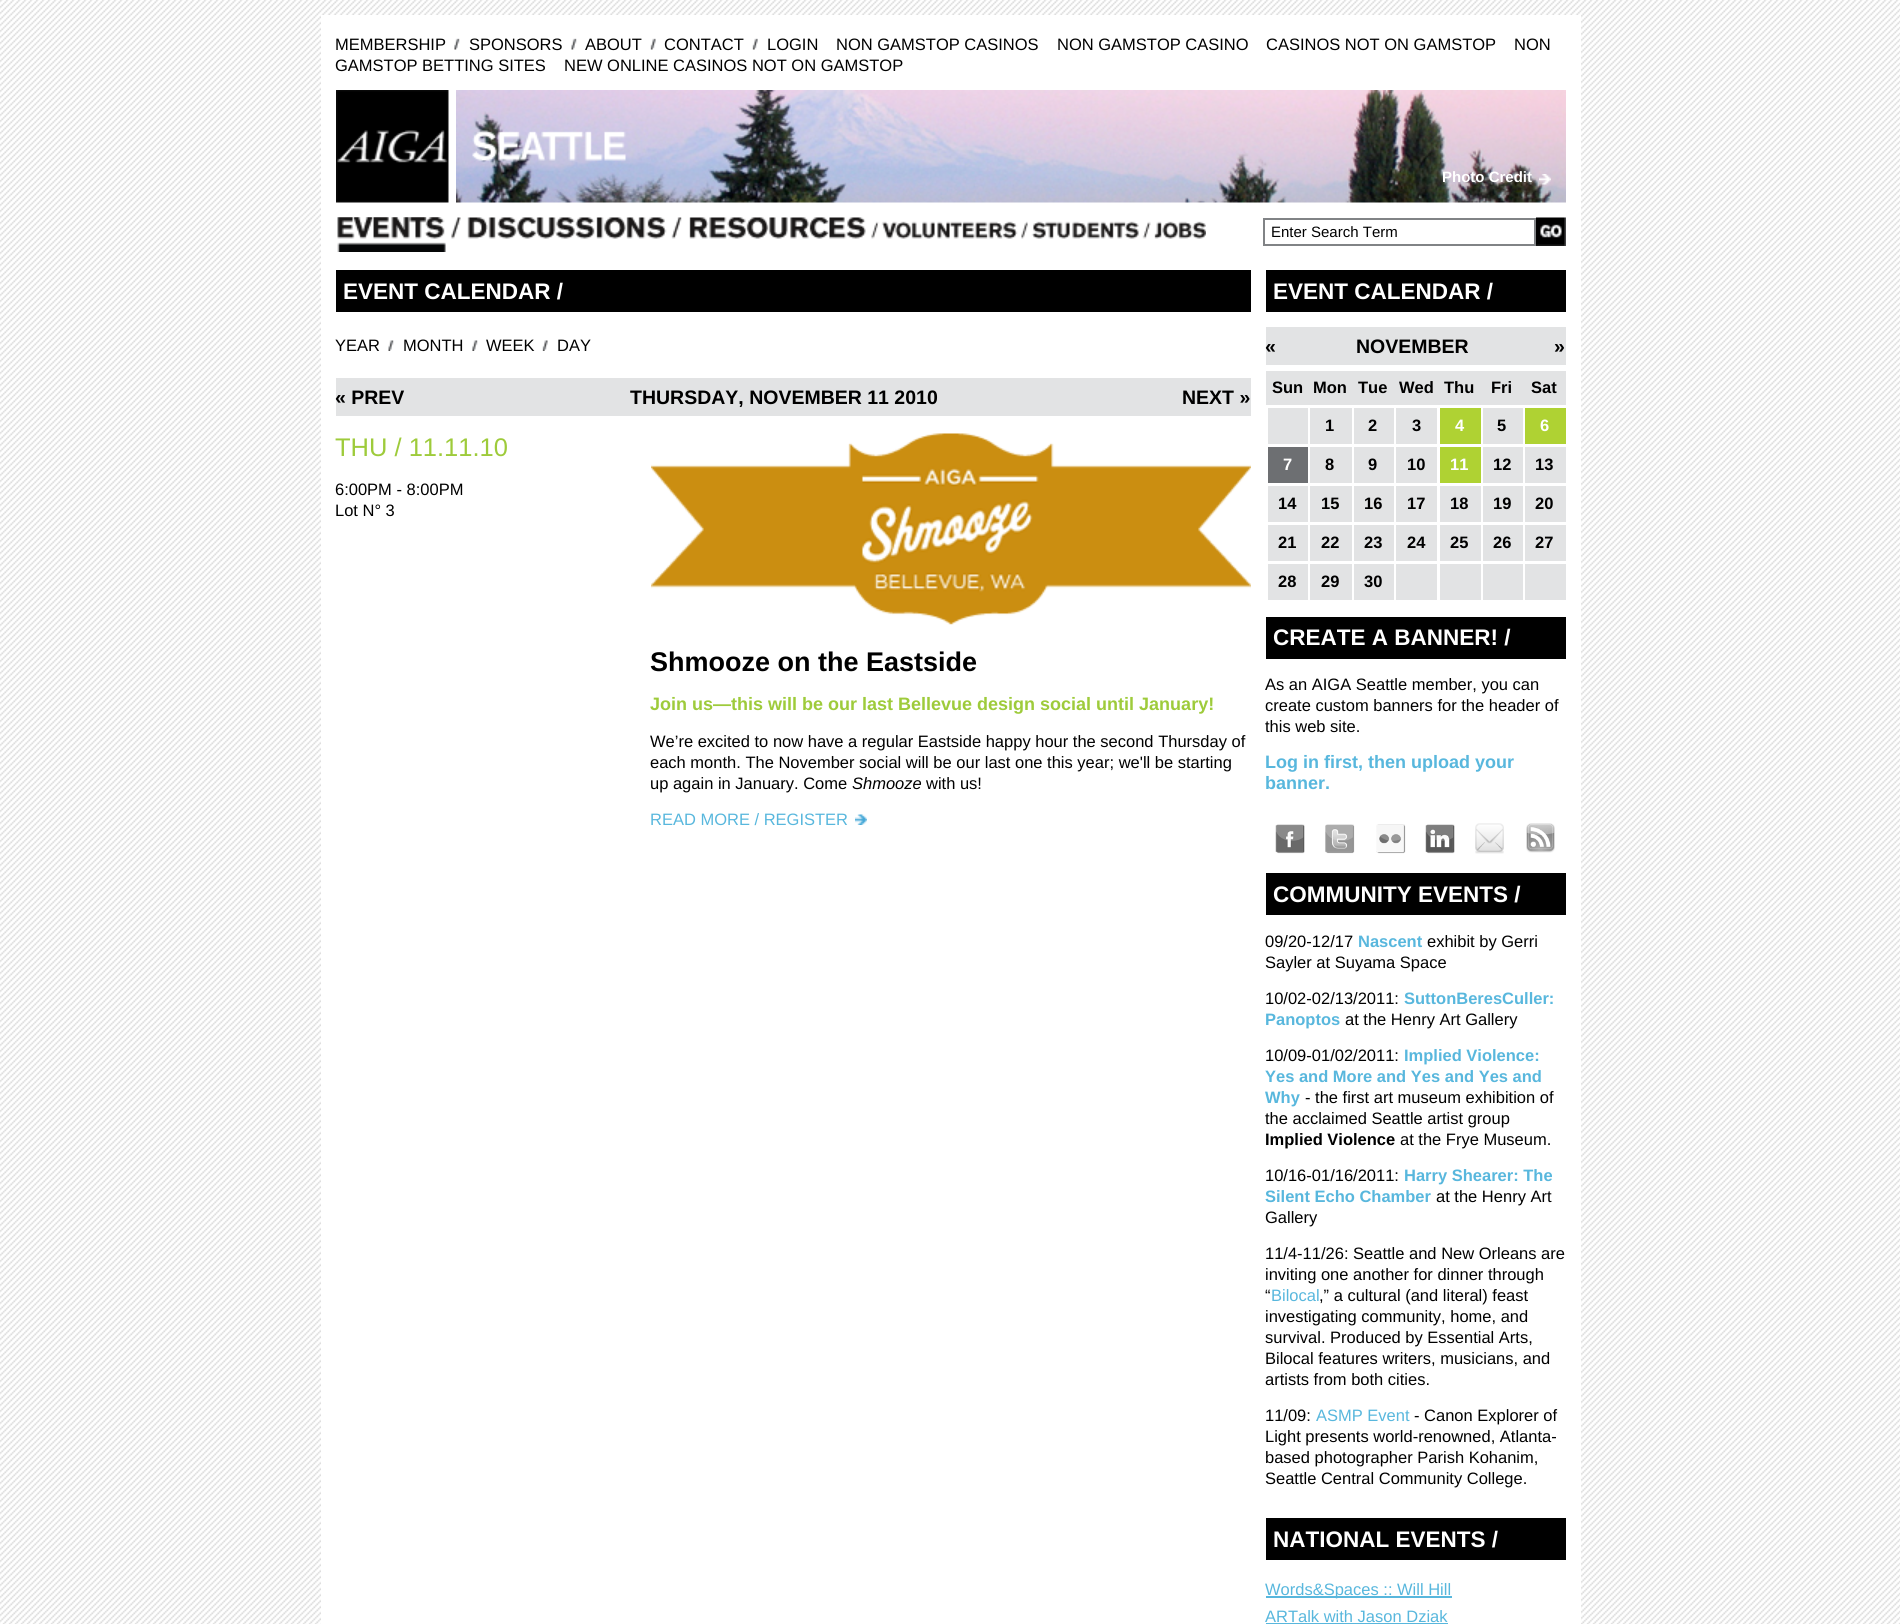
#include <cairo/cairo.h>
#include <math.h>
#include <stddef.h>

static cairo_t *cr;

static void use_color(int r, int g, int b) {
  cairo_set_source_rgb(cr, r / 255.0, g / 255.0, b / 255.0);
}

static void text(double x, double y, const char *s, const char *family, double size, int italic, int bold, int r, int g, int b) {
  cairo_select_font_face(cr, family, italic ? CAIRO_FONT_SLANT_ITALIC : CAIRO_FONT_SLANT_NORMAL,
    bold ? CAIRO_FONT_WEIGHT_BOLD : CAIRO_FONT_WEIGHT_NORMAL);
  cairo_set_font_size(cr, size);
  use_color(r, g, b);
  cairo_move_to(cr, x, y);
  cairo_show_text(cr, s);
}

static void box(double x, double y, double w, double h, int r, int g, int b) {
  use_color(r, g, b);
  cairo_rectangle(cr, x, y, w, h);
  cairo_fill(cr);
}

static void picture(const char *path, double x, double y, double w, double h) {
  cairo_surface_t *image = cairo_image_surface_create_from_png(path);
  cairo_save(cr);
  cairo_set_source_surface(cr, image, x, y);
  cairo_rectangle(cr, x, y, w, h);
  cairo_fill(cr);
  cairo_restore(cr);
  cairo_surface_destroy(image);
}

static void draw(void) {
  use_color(255, 255, 255);
  cairo_paint(cr);
  picture("img_01.png", 0, 0, 1900, 1624);
  box(321, 15, 1260, 1609, 255, 255, 255);
  picture("img_02.png", 454, 38, 6, 12);
  picture("img_03.png", 571, 38, 6, 12);
  picture("img_04.png", 650, 38, 6, 12);
  picture("img_05.png", 752, 38, 6, 12);
  picture("img_06.png", 336, 90, 113, 113);
  picture("img_08.png", 456, 90, 1110, 113);
  picture("img_07.png", 472, 130, 154, 31);
  picture("img_09.png", 1539, 174, 12, 11);
  picture("img_10.png", 337, 217, 869, 22);
  picture("img_11.png", 337, 217, 109, 35);
  cairo_rectangle(cr, 1264, 219, 271, 26);
  use_color(129, 131, 134);
  cairo_stroke(cr);
  picture("img_12.png", 1536, 217, 30, 29);
  box(336, 270, 915, 42, 0, 0, 0);
  picture("img_13.png", 388, 340, 6, 11);
  picture("img_14.png", 472, 340, 6, 11);
  picture("img_15.png", 542, 340, 6, 11);
  box(336, 378, 915, 38, 226, 227, 228);
  picture("img_16.png", 651, 433, 600, 192);
  picture("img_17.png", 855, 814, 12, 11);
  box(1266, 270, 300, 42, 0, 0, 0);
  box(1266, 327, 300, 38, 226, 227, 228);
  box(1266, 371, 300, 34, 226, 227, 228);
  box(1268, 408, 40, 36, 226, 227, 228);
  box(1310, 408, 42, 36, 226, 227, 228);
  box(1354, 408, 40, 36, 226, 227, 228);
  box(1396, 408, 41, 36, 226, 227, 228);
  box(1440, 408, 41, 36, 175, 210, 51);
  box(1483, 408, 40, 36, 226, 227, 228);
  box(1525, 408, 41, 36, 175, 210, 51);
  box(1268, 447, 40, 36, 109, 111, 114);
  box(1310, 447, 42, 36, 226, 227, 228);
  box(1354, 447, 40, 36, 226, 227, 228);
  box(1396, 447, 41, 36, 226, 227, 228);
  box(1440, 447, 41, 36, 175, 210, 51);
  box(1483, 447, 40, 36, 226, 227, 228);
  box(1525, 447, 41, 36, 226, 227, 228);
  box(1268, 486, 40, 36, 226, 227, 228);
  box(1310, 486, 42, 36, 226, 227, 228);
  box(1354, 486, 40, 36, 226, 227, 228);
  box(1396, 486, 41, 36, 226, 227, 228);
  box(1440, 486, 41, 36, 226, 227, 228);
  box(1483, 486, 40, 36, 226, 227, 228);
  box(1525, 486, 41, 36, 226, 227, 228);
  box(1268, 525, 40, 36, 226, 227, 228);
  box(1310, 525, 42, 36, 226, 227, 228);
  box(1354, 525, 40, 36, 226, 227, 228);
  box(1396, 525, 41, 36, 226, 227, 228);
  box(1440, 525, 41, 36, 226, 227, 228);
  box(1483, 525, 40, 36, 226, 227, 228);
  box(1525, 525, 41, 36, 226, 227, 228);
  box(1268, 564, 40, 36, 226, 227, 228);
  box(1310, 564, 42, 36, 226, 227, 228);
  box(1354, 564, 40, 36, 226, 227, 228);
  box(1396, 564, 41, 36, 226, 227, 228);
  box(1440, 564, 41, 36, 226, 227, 228);
  box(1483, 564, 40, 36, 226, 227, 228);
  box(1525, 564, 41, 36, 226, 227, 228);
  box(1266, 617, 300, 42, 0, 0, 0);
  picture("img_18.png", 1275, 824, 30, 30);
  picture("img_19.png", 1325, 824, 30, 30);
  picture("img_20.png", 1376, 824, 30, 30);
  picture("img_21.png", 1425, 824, 30, 30);
  picture("img_22.png", 1475, 823, 29, 31);
  picture("img_23.png", 1526, 823, 29, 30);
  box(1266, 873, 300, 42, 0, 0, 0);
  box(1266, 1518, 300, 42, 0, 0, 0);
  box(1266, 1596, 186, 2, 88, 183, 221);
  box(1266, 1623, 182, 1, 88, 183, 221);
  text(335, 50, "MEMBERSHIP", "Liberation Sans", 16.5, 0, 0, 0, 0, 0);
  text(469, 50, "SPONSORS", "Liberation Sans", 16.5, 0, 0, 0, 0, 0);
  text(585, 50, "ABOUT", "Liberation Sans", 16.5, 0, 0, 0, 0, 0);
  text(664, 50, "CONTACT", "Liberation Sans", 16.5, 0, 0, 0, 0, 0);
  text(767, 50, "LOGIN", "Liberation Sans", 16.5, 0, 0, 0, 0, 0);
  text(836, 50, "NON GAMSTOP CASINOS", "Liberation Sans", 16.5, 0, 0, 0, 0, 0);
  text(1057, 50, "NON GAMSTOP CASINO", "Liberation Sans", 16.5, 0, 0, 0, 0, 0);
  text(1266, 50, "CASINOS NOT ON GAMSTOP", "Liberation Sans", 16.5, 0, 0, 0, 0, 0);
  text(1514, 50, "NON", "Liberation Sans", 16.5, 0, 0, 0, 0, 0);
  text(335, 71, "GAMSTOP BETTING SITES", "Liberation Sans", 16.5, 0, 0, 0, 0, 0);
  text(564, 71, "NEW ONLINE CASINOS NOT ON GAMSTOP", "Liberation Sans", 16.5, 0, 0, 0, 0, 0);
  text(1442, 182, "Photo Credit", "Liberation Sans", 15, 0, 1, 255, 255, 255);
  text(1271, 237, "Enter Search Term", "Liberation Sans", 15, 0, 0, 0, 0, 0);
  text(343, 299, "EVENT CALENDAR /", "Liberation Sans", 22.5, 0, 1, 255, 255, 255);
  text(335, 351, "YEAR", "Liberation Sans", 16.5, 0, 0, 0, 0, 0);
  text(403, 351, "MONTH", "Liberation Sans", 16.5, 0, 0, 0, 0, 0);
  text(486, 351, "WEEK", "Liberation Sans", 16.5, 0, 0, 0, 0, 0);
  text(557, 351, "DAY", "Liberation Sans", 16.5, 0, 0, 0, 0, 0);
  text(335, 404, "« PREV", "Liberation Sans", 19.5, 0, 1, 0, 0, 0);
  text(630, 404, "THURSDAY, NOVEMBER 11 2010", "Liberation Sans", 19.5, 0, 1, 0, 0, 0);
  text(1182, 404, "NEXT »", "Liberation Sans", 19.5, 0, 1, 0, 0, 0);
  text(335, 456, "THU / 11.11.10", "Liberation Sans", 25.5, 0, 0, 158, 203, 59);
  text(335, 495, "6:00PM - 8:00PM", "Liberation Sans", 16.5, 0, 0, 0, 0, 0);
  text(335, 516, "Lot N° 3", "Liberation Sans", 16.5, 0, 0, 0, 0, 0);
  text(650, 671, "Shmooze on the Eastside", "Liberation Sans", 27, 0, 1, 0, 0, 0);
  text(650, 710, "Join us—this will be our last Bellevue design social until January!", "Liberation Sans", 18, 0, 1, 158, 203, 59);
  text(650, 747, "We’re excited to now have a regular Eastside happy hour the second Thursday of", "Liberation Sans", 16.5, 0, 0, 0, 0, 0);
  text(650, 768, "each month. The November social will be our last one this year; we'll be starting", "Liberation Sans", 16.5, 0, 0, 0, 0, 0);
  text(650, 789, "up again in January. Come", "Liberation Sans", 16.5, 0, 0, 0, 0, 0);
  text(852, 789, "Shmooze", "Liberation Sans", 16.5, 1, 0, 0, 0, 0);
  text(926, 789, "with us!", "Liberation Sans", 16.5, 0, 0, 0, 0, 0);
  text(650, 825, "READ MORE / REGISTER", "Liberation Sans", 16.5, 0, 0, 88, 183, 221);
  text(1273, 299, "EVENT CALENDAR /", "Liberation Sans", 22.5, 0, 1, 255, 255, 255);
  text(1265, 353, "«", "Liberation Sans", 19.5, 0, 1, 0, 0, 0);
  text(1356, 353, "NOVEMBER", "Liberation Sans", 19.5, 0, 1, 0, 0, 0);
  text(1554, 353, "»", "Liberation Sans", 19.5, 0, 1, 0, 0, 0);
  text(1272, 393, "Sun", "Liberation Sans", 16.5, 0, 1, 0, 0, 0);
  text(1313, 393, "Mon", "Liberation Sans", 16.5, 0, 1, 0, 0, 0);
  text(1358, 393, "Tue", "Liberation Sans", 16.5, 0, 1, 0, 0, 0);
  text(1399, 393, "Wed", "Liberation Sans", 16.5, 0, 1, 0, 0, 0);
  text(1444, 393, "Thu", "Liberation Sans", 16.5, 0, 1, 0, 0, 0);
  text(1491, 393, "Fri", "Liberation Sans", 16.5, 0, 1, 0, 0, 0);
  text(1531, 393, "Sat", "Liberation Sans", 16.5, 0, 1, 0, 0, 0);
  text(1325, 431, "1", "Liberation Sans", 16.5, 0, 1, 0, 0, 0);
  text(1368, 431, "2", "Liberation Sans", 16.5, 0, 1, 0, 0, 0);
  text(1412, 431, "3", "Liberation Sans", 16.5, 0, 1, 0, 0, 0);
  text(1455, 431, "4", "Liberation Sans", 16.5, 0, 1, 255, 255, 255);
  text(1497, 431, "5", "Liberation Sans", 16.5, 0, 1, 0, 0, 0);
  text(1540, 431, "6", "Liberation Sans", 16.5, 0, 1, 255, 255, 255);
  text(1283, 470, "7", "Liberation Sans", 16.5, 0, 1, 255, 255, 255);
  text(1325, 470, "8", "Liberation Sans", 16.5, 0, 1, 0, 0, 0);
  text(1368, 470, "9", "Liberation Sans", 16.5, 0, 1, 0, 0, 0);
  text(1407, 470, "10", "Liberation Sans", 16.5, 0, 1, 0, 0, 0);
  text(1450, 470, "11", "Liberation Sans", 16.5, 0, 1, 255, 255, 255);
  text(1493, 470, "12", "Liberation Sans", 16.5, 0, 1, 0, 0, 0);
  text(1535, 470, "13", "Liberation Sans", 16.5, 0, 1, 0, 0, 0);
  text(1278, 509, "14", "Liberation Sans", 16.5, 0, 1, 0, 0, 0);
  text(1321, 509, "15", "Liberation Sans", 16.5, 0, 1, 0, 0, 0);
  text(1364, 509, "16", "Liberation Sans", 16.5, 0, 1, 0, 0, 0);
  text(1407, 509, "17", "Liberation Sans", 16.5, 0, 1, 0, 0, 0);
  text(1450, 509, "18", "Liberation Sans", 16.5, 0, 1, 0, 0, 0);
  text(1493, 509, "19", "Liberation Sans", 16.5, 0, 1, 0, 0, 0);
  text(1535, 509, "20", "Liberation Sans", 16.5, 0, 1, 0, 0, 0);
  text(1278, 548, "21", "Liberation Sans", 16.5, 0, 1, 0, 0, 0);
  text(1321, 548, "22", "Liberation Sans", 16.5, 0, 1, 0, 0, 0);
  text(1364, 548, "23", "Liberation Sans", 16.5, 0, 1, 0, 0, 0);
  text(1407, 548, "24", "Liberation Sans", 16.5, 0, 1, 0, 0, 0);
  text(1450, 548, "25", "Liberation Sans", 16.5, 0, 1, 0, 0, 0);
  text(1493, 548, "26", "Liberation Sans", 16.5, 0, 1, 0, 0, 0);
  text(1535, 548, "27", "Liberation Sans", 16.5, 0, 1, 0, 0, 0);
  text(1278, 587, "28", "Liberation Sans", 16.5, 0, 1, 0, 0, 0);
  text(1321, 587, "29", "Liberation Sans", 16.5, 0, 1, 0, 0, 0);
  text(1364, 587, "30", "Liberation Sans", 16.5, 0, 1, 0, 0, 0);
  text(1273, 645, "CREATE A BANNER! /", "Liberation Sans", 22.5, 0, 1, 255, 255, 255);
  text(1265, 690, "As an AIGA Seattle member, you can", "Liberation Sans", 16.5, 0, 0, 0, 0, 0);
  text(1265, 711, "create custom banners for the header of", "Liberation Sans", 16.5, 0, 0, 0, 0, 0);
  text(1265, 732, "this web site.", "Liberation Sans", 16.5, 0, 0, 0, 0, 0);
  text(1265, 768, "Log in first, then upload your", "Liberation Sans", 18, 0, 1, 88, 183, 221);
  text(1265, 789, "banner.", "Liberation Sans", 18, 0, 1, 88, 183, 221);
  text(1273, 902, "COMMUNITY EVENTS /", "Liberation Sans", 22.5, 0, 1, 255, 255, 255);
  text(1265, 947, "09/20-12/17", "Liberation Sans", 16.5, 0, 0, 0, 0, 0);
  text(1358, 947, "Nascent", "Liberation Sans", 16.5, 0, 1, 88, 183, 221);
  text(1427, 947, "exhibit by Gerri", "Liberation Sans", 16.5, 0, 0, 0, 0, 0);
  text(1265, 968, "Sayler at Suyama Space", "Liberation Sans", 16.5, 0, 0, 0, 0, 0);
  text(1265, 1004, "10/02-02/13/2011:", "Liberation Sans", 16.5, 0, 0, 0, 0, 0);
  text(1404, 1004, "SuttonBeresCuller:", "Liberation Sans", 16.5, 0, 1, 88, 183, 221);
  text(1265, 1025, "Panoptos", "Liberation Sans", 16.5, 0, 1, 88, 183, 221);
  text(1345, 1025, "at the Henry Art Gallery", "Liberation Sans", 16.5, 0, 0, 0, 0, 0);
  text(1265, 1061, "10/09-01/02/2011:", "Liberation Sans", 16.5, 0, 0, 0, 0, 0);
  text(1404, 1061, "Implied Violence:", "Liberation Sans", 16.5, 0, 1, 88, 183, 221);
  text(1265, 1082, "Yes and More and Yes and Yes and", "Liberation Sans", 16.5, 0, 1, 88, 183, 221);
  text(1265, 1103, "Why", "Liberation Sans", 16.5, 0, 1, 88, 183, 221);
  text(1305, 1103, "- the first art museum exhibition of", "Liberation Sans", 16.5, 0, 0, 0, 0, 0);
  text(1265, 1124, "the acclaimed Seattle artist group", "Liberation Sans", 16.5, 0, 0, 0, 0, 0);
  text(1265, 1145, "Implied Violence", "Liberation Sans", 16.5, 0, 1, 0, 0, 0);
  text(1400, 1145, "at the Frye Museum.", "Liberation Sans", 16.5, 0, 0, 0, 0, 0);
  text(1265, 1181, "10/16-01/16/2011:", "Liberation Sans", 16.5, 0, 0, 0, 0, 0);
  text(1404, 1181, "Harry Shearer: The", "Liberation Sans", 16.5, 0, 1, 88, 183, 221);
  text(1265, 1202, "Silent Echo Chamber", "Liberation Sans", 16.5, 0, 1, 88, 183, 221);
  text(1436, 1202, "at the Henry Art", "Liberation Sans", 16.5, 0, 0, 0, 0, 0);
  text(1265, 1223, "Gallery", "Liberation Sans", 16.5, 0, 0, 0, 0, 0);
  text(1265, 1259, "11/4-11/26: Seattle and New Orleans are", "Liberation Sans", 16.5, 0, 0, 0, 0, 0);
  text(1265, 1280, "inviting one another for dinner through", "Liberation Sans", 16.5, 0, 0, 0, 0, 0);
  text(1265, 1301, "“", "Liberation Sans", 16.5, 0, 0, 0, 0, 0);
  text(1271, 1301, "Bilocal", "Liberation Sans", 16.5, 0, 0, 88, 183, 221);
  text(1319, 1301, ",” a cultural (and literal) feast", "Liberation Sans", 16.5, 0, 0, 0, 0, 0);
  text(1265, 1322, "investigating community, home, and", "Liberation Sans", 16.5, 0, 0, 0, 0, 0);
  text(1265, 1343, "survival. Produced by Essential Arts,", "Liberation Sans", 16.5, 0, 0, 0, 0, 0);
  text(1265, 1364, "Bilocal features writers, musicians, and", "Liberation Sans", 16.5, 0, 0, 0, 0, 0);
  text(1265, 1385, "artists from both cities.", "Liberation Sans", 16.5, 0, 0, 0, 0, 0);
  text(1265, 1421, "11/09:", "Liberation Sans", 16.5, 0, 0, 0, 0, 0);
  text(1316, 1421, "ASMP Event", "Liberation Sans", 16.5, 0, 0, 88, 183, 221);
  text(1414, 1421, "- Canon Explorer of", "Liberation Sans", 16.5, 0, 0, 0, 0, 0);
  text(1265, 1442, "Light presents world-renowned, Atlanta-", "Liberation Sans", 16.5, 0, 0, 0, 0, 0);
  text(1265, 1463, "based photographer Parish Kohanim,", "Liberation Sans", 16.5, 0, 0, 0, 0, 0);
  text(1265, 1484, "Seattle Central Community College.", "Liberation Sans", 16.5, 0, 0, 0, 0, 0);
  text(1273, 1547, "NATIONAL EVENTS /", "Liberation Sans", 22.5, 0, 1, 255, 255, 255);
  text(1265, 1595, "Words&Spaces :: Will Hill", "Liberation Sans", 16.5, 0, 0, 88, 183, 221);
  text(1265, 1622, "ARTalk with Jason Dziak", "Liberation Sans", 16.5, 0, 0, 88, 183, 221);
}

int main(void) {
  cairo_surface_t *surface = cairo_image_surface_create(CAIRO_FORMAT_RGB24, 1900, 1624);
  cr = cairo_create(surface);
  cairo_font_options_t *options = cairo_font_options_create();
  cairo_font_options_set_hint_metrics(options, CAIRO_HINT_METRICS_OFF);
  cairo_font_options_set_hint_style(options, CAIRO_HINT_STYLE_NONE);
  cairo_set_font_options(cr, options);
  cairo_set_miter_limit(cr, 4);
  draw();
  cairo_surface_write_to_png(surface, "out.png");
  cairo_font_options_destroy(options);
  cairo_destroy(cr);
  cairo_surface_destroy(surface);
  return 0;
}
